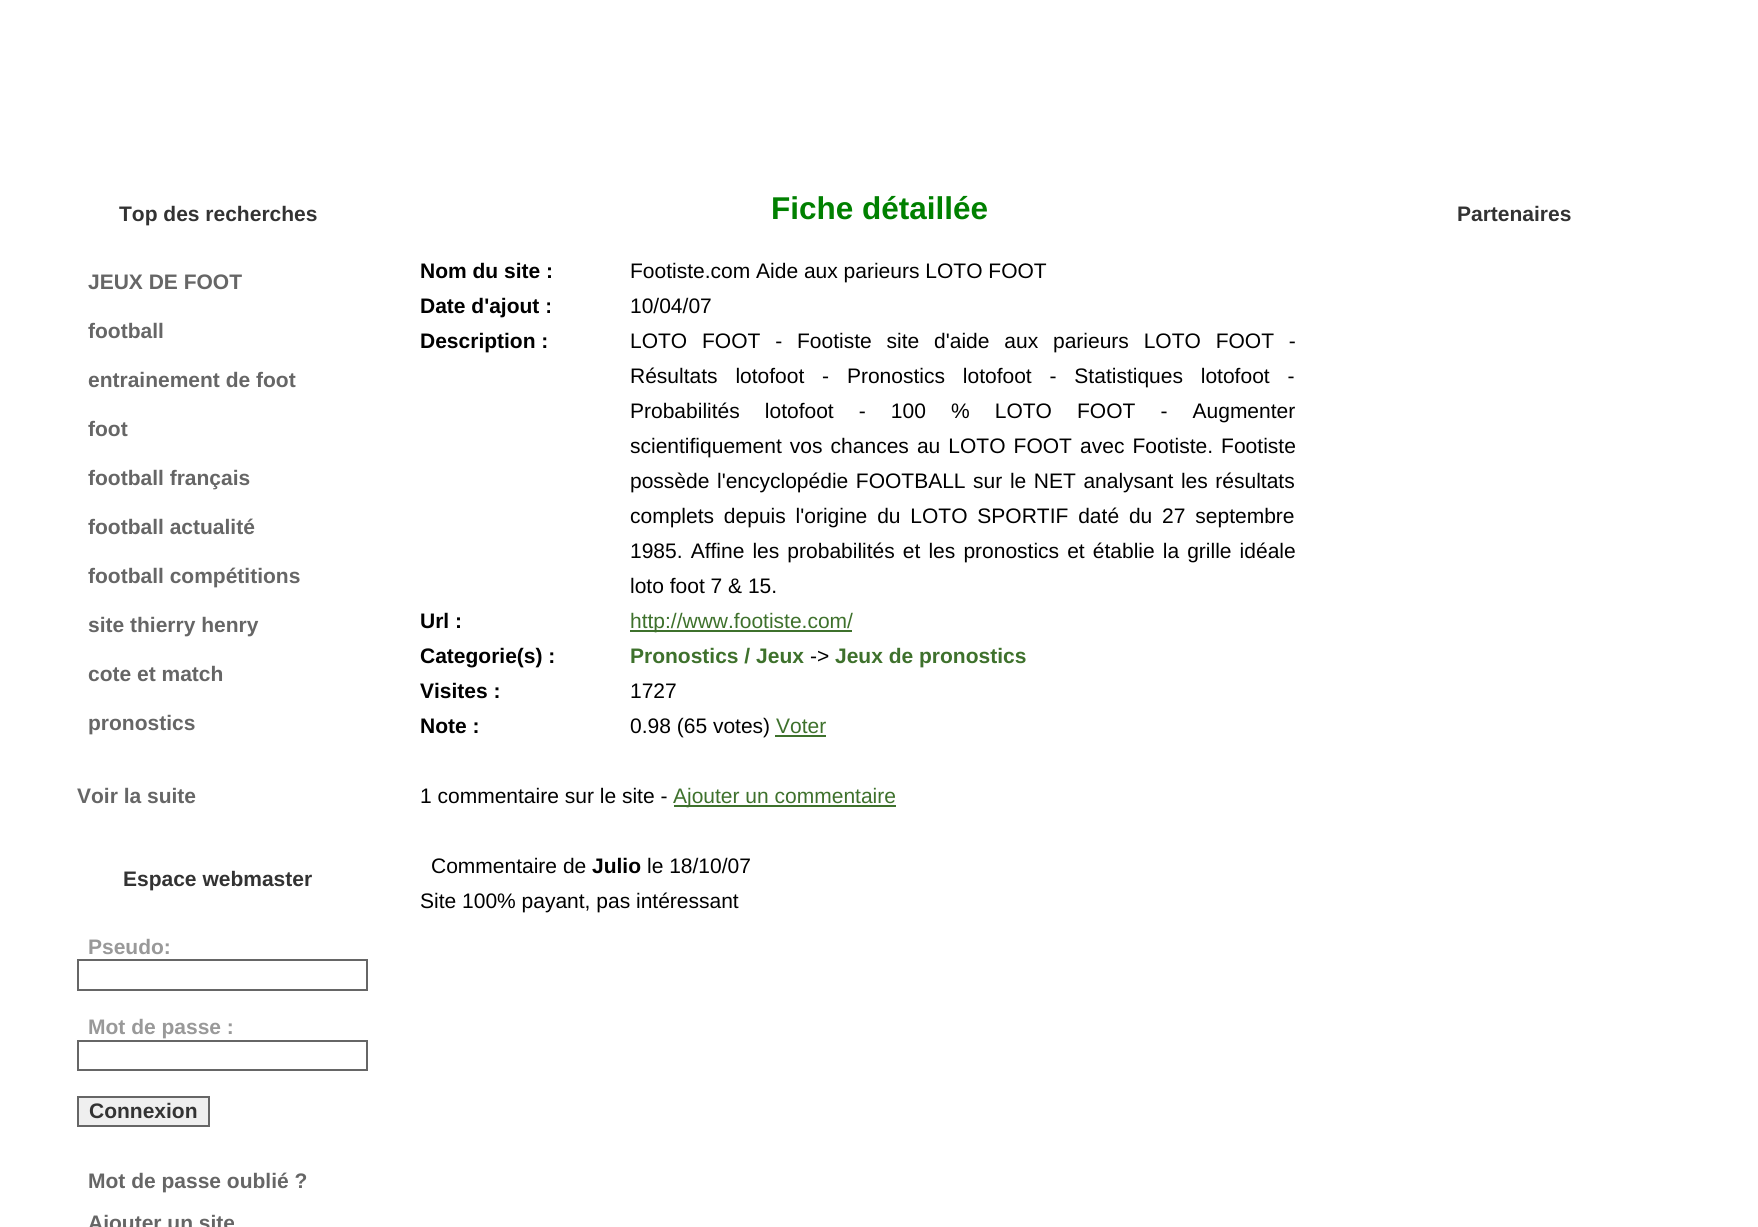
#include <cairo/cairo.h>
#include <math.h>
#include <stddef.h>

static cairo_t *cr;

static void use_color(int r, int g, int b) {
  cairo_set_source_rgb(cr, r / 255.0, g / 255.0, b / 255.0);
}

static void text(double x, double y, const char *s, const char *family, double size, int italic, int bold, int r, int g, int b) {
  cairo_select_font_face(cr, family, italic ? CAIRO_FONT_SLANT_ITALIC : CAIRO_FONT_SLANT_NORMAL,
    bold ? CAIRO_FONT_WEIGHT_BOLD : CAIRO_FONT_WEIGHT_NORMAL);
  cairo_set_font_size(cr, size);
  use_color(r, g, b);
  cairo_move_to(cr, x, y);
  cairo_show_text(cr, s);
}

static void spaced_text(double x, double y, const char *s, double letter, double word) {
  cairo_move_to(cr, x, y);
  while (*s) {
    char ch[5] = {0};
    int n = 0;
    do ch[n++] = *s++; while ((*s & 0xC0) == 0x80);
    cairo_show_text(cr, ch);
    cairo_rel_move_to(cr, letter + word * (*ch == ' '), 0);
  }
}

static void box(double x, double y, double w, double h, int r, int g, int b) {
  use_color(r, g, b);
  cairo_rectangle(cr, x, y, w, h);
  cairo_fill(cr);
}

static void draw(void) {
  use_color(255, 255, 255);
  cairo_paint(cr);
  cairo_rectangle(cr, 78, 960, 289, 30);
  use_color(102, 102, 102);
  cairo_stroke(cr);
  cairo_rectangle(cr, 78, 1041, 289, 29);
  cairo_stroke(cr);
  use_color(239, 239, 239);
  cairo_rectangle(cr, 78, 1097, 131, 29);
  cairo_fill_preserve(cr);
  use_color(102, 102, 102);
  cairo_stroke(cr);
  box(630, 630, 222, 2, 62, 113, 44);
  box(775, 735, 51, 2, 62, 113, 44);
  box(674, 805, 222, 2, 62, 113, 44);
  text(119, 221, "Top des recherches", "Liberation Sans", 21, 0, 1, 51, 51, 51);
  text(88, 289, "JEUX DE FOOT", "Liberation Sans", 21, 0, 1, 102, 102, 102);
  text(88, 338, "football", "Liberation Sans", 21, 0, 1, 102, 102, 102);
  text(88, 387, "entrainement de foot", "Liberation Sans", 21, 0, 1, 102, 102, 102);
  text(88, 436, "foot", "Liberation Sans", 21, 0, 1, 102, 102, 102);
  text(88, 485, "football français", "Liberation Sans", 21, 0, 1, 102, 102, 102);
  text(88, 534, "football actualité", "Liberation Sans", 21, 0, 1, 102, 102, 102);
  text(88, 583, "football compétitions", "Liberation Sans", 21, 0, 1, 102, 102, 102);
  text(88, 632, "site thierry henry", "Liberation Sans", 21, 0, 1, 102, 102, 102);
  text(88, 681, "cote et match", "Liberation Sans", 21, 0, 1, 102, 102, 102);
  text(88, 730, "pronostics", "Liberation Sans", 21, 0, 1, 102, 102, 102);
  text(77, 803, "Voir la suite", "Liberation Sans", 21, 0, 1, 102, 102, 102);
  text(123, 886, "Espace webmaster", "Liberation Sans", 21, 0, 1, 51, 51, 51);
  text(88, 954, "Pseudo:", "Liberation Sans", 21, 0, 1, 153, 153, 153);
  text(88, 1034, "Mot de passe :", "Liberation Sans", 21, 0, 1, 153, 153, 153);
  text(89, 1118, "Connexion", "Liberation Sans", 21, 0, 1, 51, 51, 51);
  text(88, 1188, "Mot de passe oublié ?", "Liberation Sans", 21, 0, 1, 102, 102, 102);
  text(88, 1230, "Ajouter un site", "Liberation Sans", 21, 0, 1, 102, 102, 102);
  text(771, 219, "Fiche détaillée", "Liberation Sans", 31.5, 0, 1, 0, 128, 0);
  text(420, 278, "Nom du site :", "Liberation Sans", 21, 0, 1, 0, 0, 0);
  text(630, 278, "Footiste.com Aide aux parieurs LOTO FOOT", "Liberation Sans", 21, 0, 0, 0, 0, 0);
  text(420, 313, "Date d'ajout :", "Liberation Sans", 21, 0, 1, 0, 0, 0);
  text(630, 313, "10/04/07", "Liberation Sans", 21, 0, 0, 0, 0, 0);
  text(420, 348, "Description :", "Liberation Sans", 21, 0, 1, 0, 0, 0);
  cairo_select_font_face(cr, "Liberation Sans", CAIRO_FONT_SLANT_NORMAL, CAIRO_FONT_WEIGHT_NORMAL);
  spaced_text(630, 348, "LOTO FOOT - Footiste site d'aide aux parieurs LOTO FOOT -", 0, 9);
  spaced_text(630, 383, "Résultats lotofoot - Pronostics lotofoot - Statistiques lotofoot -", 0, 12);
  spaced_text(630, 418, "Probabilités lotofoot - 100 % LOTO FOOT - Augmenter", 0, 19.25);
  spaced_text(630, 453, "scientifiquement vos chances au LOTO FOOT avec Footiste. Footiste", 0, 2.25);
  spaced_text(630, 488, "possède l'encyclopédie FOOTBALL sur le NET analysant les résultats", 0, 1.75);
  spaced_text(630, 523, "complets depuis l'origine du LOTO SPORTIF daté du 27 septembre", 0, 4);
  spaced_text(630, 558, "1985. Affine les probabilités et les pronostics et établie la grille idéale", 0, 2.25);
  text(630, 593, "loto foot 7 & 15.", "Liberation Sans", 21, 0, 0, 0, 0, 0);
  text(420, 628, "Url :", "Liberation Sans", 21, 0, 1, 0, 0, 0);
  text(630, 628, "http://www.footiste.com/", "Liberation Sans", 21, 0, 0, 62, 113, 44);
  text(420, 663, "Categorie(s) :", "Liberation Sans", 21, 0, 1, 0, 0, 0);
  text(630, 663, "Pronostics / Jeux", "Liberation Sans", 21, 0, 1, 62, 113, 44);
  text(810, 663, "->", "Liberation Sans", 21, 0, 0, 0, 0, 0);
  text(835, 663, "Jeux de pronostics", "Liberation Sans", 21, 0, 1, 62, 113, 44);
  text(420, 698, "Visites :", "Liberation Sans", 21, 0, 1, 0, 0, 0);
  text(630, 698, "1727", "Liberation Sans", 21, 0, 0, 0, 0, 0);
  text(420, 733, "Note :", "Liberation Sans", 21, 0, 1, 0, 0, 0);
  text(630, 733, "0.98 (65 votes)", "Liberation Sans", 21, 0, 0, 0, 0, 0);
  text(776, 733, "Voter", "Liberation Sans", 21, 0, 0, 62, 113, 44);
  text(420, 803, "1 commentaire sur le site -", "Liberation Sans", 21, 0, 0, 0, 0, 0);
  text(673, 803, "Ajouter un commentaire", "Liberation Sans", 21, 0, 0, 62, 113, 44);
  text(431, 873, "Commentaire de", "Liberation Sans", 21, 0, 0, 0, 0, 0);
  text(592, 873, "Julio", "Liberation Sans", 21, 0, 1, 0, 0, 0);
  text(647, 873, "le 18/10/07", "Liberation Sans", 21, 0, 0, 0, 0, 0);
  text(420, 908, "Site 100% payant, pas intéressant", "Liberation Sans", 21, 0, 0, 0, 0, 0);
  text(1457, 221, "Partenaires", "Liberation Sans", 21, 0, 1, 51, 51, 51);
}

int main(void) {
  cairo_surface_t *surface = cairo_image_surface_create(CAIRO_FORMAT_RGB24, 1758, 1227);
  cr = cairo_create(surface);
  cairo_font_options_t *options = cairo_font_options_create();
  cairo_font_options_set_hint_metrics(options, CAIRO_HINT_METRICS_OFF);
  cairo_font_options_set_hint_style(options, CAIRO_HINT_STYLE_NONE);
  cairo_set_font_options(cr, options);
  cairo_set_miter_limit(cr, 4);
  draw();
  cairo_surface_write_to_png(surface, "out.png");
  cairo_font_options_destroy(options);
  cairo_destroy(cr);
  cairo_surface_destroy(surface);
  return 0;
}
